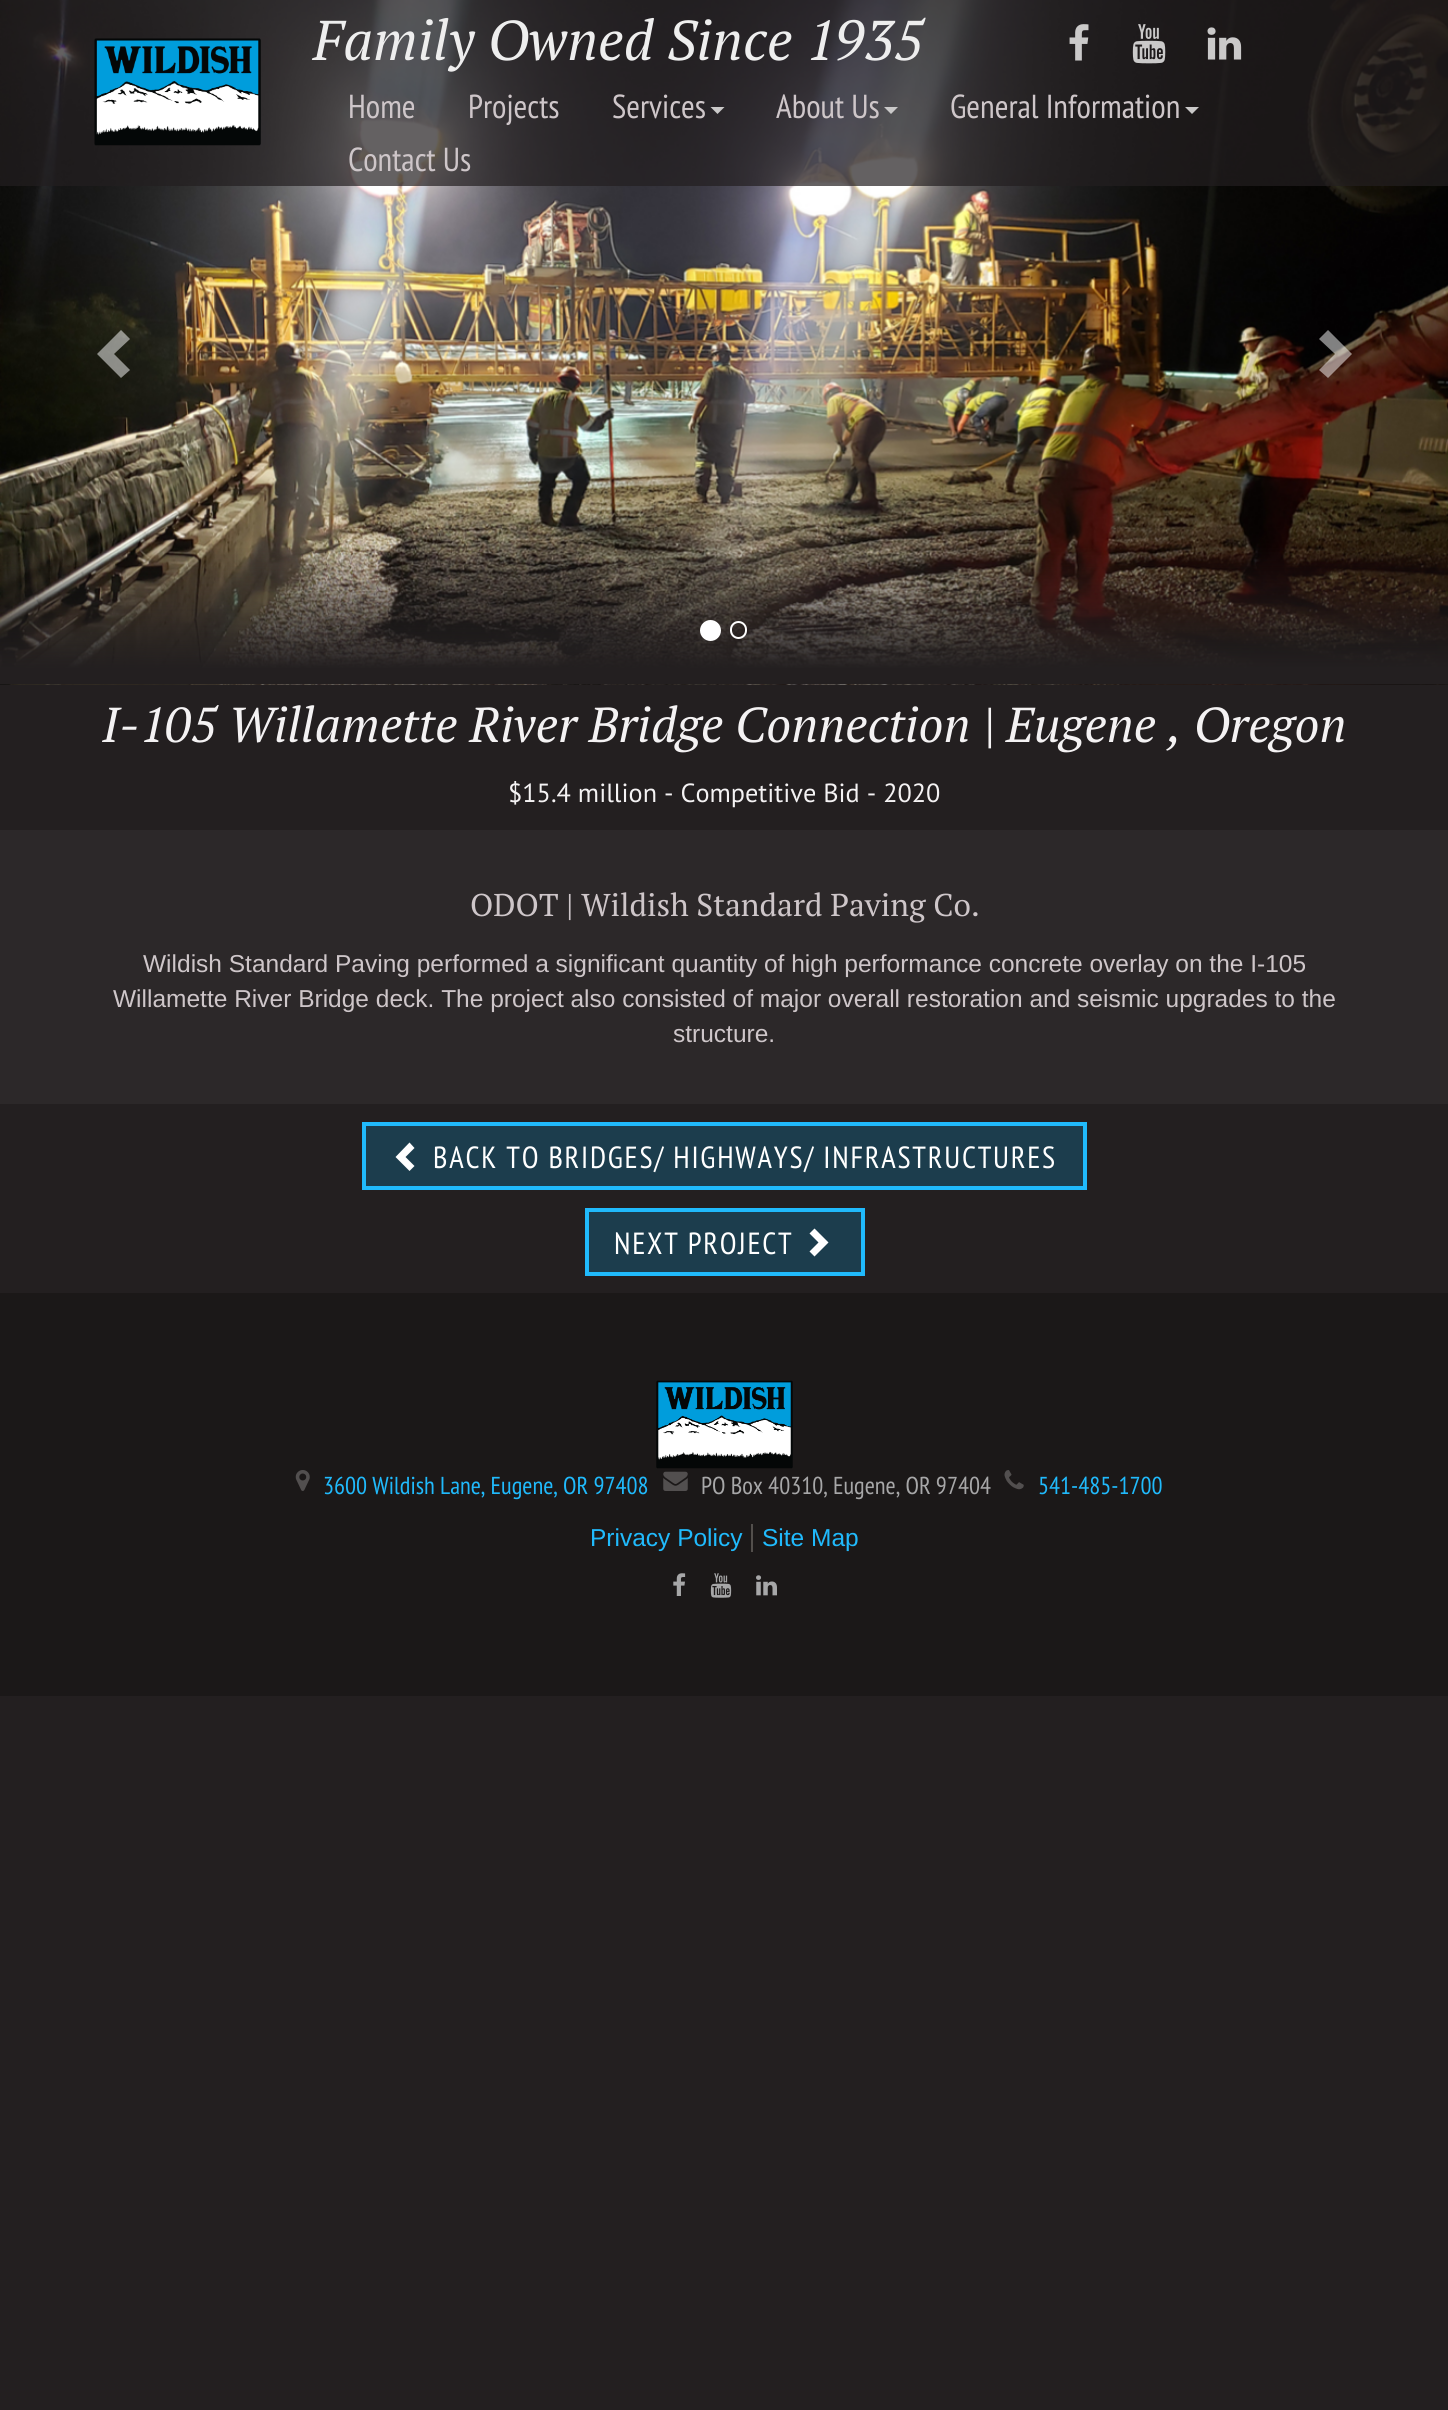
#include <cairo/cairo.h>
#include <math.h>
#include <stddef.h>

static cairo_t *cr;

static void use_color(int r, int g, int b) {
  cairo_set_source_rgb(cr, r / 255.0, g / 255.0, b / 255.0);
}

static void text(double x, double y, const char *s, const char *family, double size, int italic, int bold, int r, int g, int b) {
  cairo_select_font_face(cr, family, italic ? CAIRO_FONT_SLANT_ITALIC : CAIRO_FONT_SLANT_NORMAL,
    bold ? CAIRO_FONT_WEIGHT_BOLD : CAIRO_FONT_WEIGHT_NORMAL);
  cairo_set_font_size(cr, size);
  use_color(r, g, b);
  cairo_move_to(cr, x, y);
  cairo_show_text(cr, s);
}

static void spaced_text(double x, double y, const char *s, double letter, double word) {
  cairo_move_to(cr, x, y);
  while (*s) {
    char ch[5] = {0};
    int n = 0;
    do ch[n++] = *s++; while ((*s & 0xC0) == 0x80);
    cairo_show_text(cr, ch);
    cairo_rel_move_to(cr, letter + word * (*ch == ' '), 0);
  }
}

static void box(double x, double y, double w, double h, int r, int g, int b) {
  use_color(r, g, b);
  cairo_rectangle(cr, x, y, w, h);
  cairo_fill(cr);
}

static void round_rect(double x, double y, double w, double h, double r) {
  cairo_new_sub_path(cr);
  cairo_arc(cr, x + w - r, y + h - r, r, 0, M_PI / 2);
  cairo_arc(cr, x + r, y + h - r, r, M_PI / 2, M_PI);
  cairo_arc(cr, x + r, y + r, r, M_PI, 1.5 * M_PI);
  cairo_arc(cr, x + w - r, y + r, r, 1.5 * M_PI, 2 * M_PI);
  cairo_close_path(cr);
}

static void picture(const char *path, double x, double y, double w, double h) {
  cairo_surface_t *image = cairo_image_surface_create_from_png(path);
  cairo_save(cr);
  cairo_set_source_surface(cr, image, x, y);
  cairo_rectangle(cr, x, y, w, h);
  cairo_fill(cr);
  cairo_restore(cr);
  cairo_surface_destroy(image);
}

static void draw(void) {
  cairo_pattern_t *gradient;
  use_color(35, 31, 32);
  cairo_paint(cr);
  picture("img_05.png", 0, 0, 1448, 685);
  cairo_set_source_rgba(cr, 0.137, 0.122, 0.125, 0.7);
  cairo_rectangle(cr, 0, 0, 1448, 186);
  cairo_fill(cr);
  use_color(202, 201, 201);
  cairo_new_path(cr);
  cairo_move_to(cr, 710.5, 107);
  cairo_line_to(cr, 724.5, 107);
  cairo_line_to(cr, 717.5, 114);
  cairo_close_path(cr);
  cairo_fill(cr);
  cairo_new_path(cr);
  cairo_move_to(cr, 884, 107);
  cairo_line_to(cr, 898, 107);
  cairo_line_to(cr, 891, 114);
  cairo_close_path(cr);
  cairo_fill(cr);
  cairo_new_path(cr);
  cairo_move_to(cr, 1185, 107);
  cairo_line_to(cr, 1199, 107);
  cairo_line_to(cr, 1192, 114);
  cairo_close_path(cr);
  cairo_fill(cr);
  picture("img_01.png", 94, 38, 167, 108);
  picture("img_02.png", 1069, 24, 20, 37);
  picture("img_03.png", 1132, 24, 34, 40);
  picture("img_04.png", 1207, 27, 35, 33);
  gradient = cairo_pattern_create_linear(725, 527, 725, 684);
  cairo_pattern_add_color_stop_rgba(gradient, 0, 0.137, 0.122, 0.125, 0);
  cairo_pattern_add_color_stop_rgba(gradient, 0.12, 0.137, 0.122, 0.125, 0);
  cairo_pattern_add_color_stop_rgba(gradient, 0.9, 0.137, 0.122, 0.125, 1);
  cairo_pattern_add_color_stop_rgba(gradient, 1, 0.137, 0.122, 0.125, 1);
  cairo_set_source(cr, gradient);
  cairo_pattern_destroy(gradient);
  cairo_rectangle(cr, 0, 548, 1448, 136);
  cairo_fill(cr);
  cairo_set_source_rgba(cr, 1, 1, 1, 0.5);
  cairo_new_path(cr);
  cairo_move_to(cr, 130, 339);
  cairo_line_to(cr, 114, 354);
  cairo_line_to(cr, 130, 370);
  cairo_line_to(cr, 121, 378);
  cairo_line_to(cr, 97, 354);
  cairo_line_to(cr, 121, 330);
  cairo_close_path(cr);
  cairo_fill(cr);
  cairo_new_path(cr);
  cairo_move_to(cr, 1352, 354);
  cairo_line_to(cr, 1328, 378);
  cairo_line_to(cr, 1319, 370);
  cairo_line_to(cr, 1335, 354);
  cairo_line_to(cr, 1319, 339);
  cairo_line_to(cr, 1328, 330);
  cairo_close_path(cr);
  cairo_fill(cr);
  use_color(255, 255, 255);
  cairo_arc(cr, 710.5, 630.5, 9.5, 0, 2 * M_PI);
  cairo_fill_preserve(cr);
  cairo_stroke(cr);
  round_rect(731, 622, 15, 16, 7.5);
  cairo_stroke(cr);
  box(0, 830, 1448, 274, 44, 40, 41);
  use_color(28, 61, 77);
  cairo_rectangle(cr, 364, 1124, 721, 64);
  cairo_fill_preserve(cr);
  use_color(32, 186, 252);
  cairo_set_line_width(cr, 4);
  cairo_stroke(cr);
  use_color(255, 255, 255);
  cairo_new_path(cr);
  cairo_move_to(cr, 414.5, 1148);
  cairo_line_to(cr, 405.5, 1157);
  cairo_line_to(cr, 414.5, 1166);
  cairo_line_to(cr, 409.5, 1171);
  cairo_line_to(cr, 395.5, 1157);
  cairo_line_to(cr, 409.5, 1142.5);
  cairo_close_path(cr);
  cairo_fill(cr);
  use_color(28, 61, 77);
  cairo_rectangle(cr, 587, 1210, 276, 64);
  cairo_fill_preserve(cr);
  use_color(32, 186, 252);
  cairo_stroke(cr);
  use_color(255, 255, 255);
  cairo_new_path(cr);
  cairo_move_to(cr, 828.5, 1242.5);
  cairo_line_to(cr, 814.5, 1256.5);
  cairo_line_to(cr, 809.5, 1251.5);
  cairo_line_to(cr, 818.5, 1242.5);
  cairo_line_to(cr, 809.5, 1233.5);
  cairo_line_to(cr, 814.5, 1228.5);
  cairo_close_path(cr);
  cairo_fill(cr);
  box(0, 1293, 1448, 403, 27, 24, 24);
  picture("img_06.png", 656, 1380, 137, 89);
  picture("img_07.png", 295, 1470, 15, 21);
  picture("img_08.png", 663, 1471, 25, 20);
  picture("img_09.png", 1004, 1470, 20, 20);
  box(751, 1524, 2, 28, 83, 79, 76);
  picture("img_10.png", 673, 1573, 13, 23);
  picture("img_11.png", 710, 1573, 22, 25);
  picture("img_12.png", 756, 1575, 21, 21);
  text(313, 60, "Family Owned Since 1935", "PT Serif", 56, 1, 0, 238, 238, 238);
  text(348, 118, "Home", "PT Sans Narrow", 33.25, 0, 0, 206, 198, 201);
  text(468, 118, "Projects", "PT Sans Narrow", 33.25, 0, 0, 206, 198, 201);
  text(612, 118, "Services", "PT Sans Narrow", 33.25, 0, 0, 206, 198, 201);
  text(776, 118, "About Us", "PT Sans Narrow", 33.25, 0, 0, 206, 198, 201);
  text(950, 118, "General Information", "PT Sans Narrow", 33.25, 0, 0, 206, 198, 201);
  text(348, 171, "Contact Us", "PT Sans Narrow", 33.25, 0, 0, 206, 198, 201);
  text(102, 742, "I-105 Willamette River Bridge Connection | Eugene , Oregon", "PT Serif", 49, 1, 0, 244, 242, 243);
  text(508, 802, "$15.4 million - Competitive Bid - 2020", "PT Sans", 26.25, 0, 0, 244, 242, 243);
  text(470, 916, "ODOT | Wildish Standard Paving Co.", "PT Serif", 31.5, 0, 0, 206, 198, 201);
  text(143, 972, "Wildish Standard Paving performed a significant quantity of high performance concrete overlay on the I-105", "Liberation Sans", 24.5, 0, 0, 206, 198, 201);
  text(113, 1007, "Willamette River Bridge deck. The project also consisted of major overall restoration and seismic upgrades to the", "Liberation Sans", 24.5, 0, 0, 206, 198, 201);
  text(673, 1042, "structure.", "Liberation Sans", 24.5, 0, 0, 206, 198, 201);
  cairo_select_font_face(cr, "PT Sans Narrow", CAIRO_FONT_SLANT_NORMAL, CAIRO_FONT_WEIGHT_NORMAL);
  cairo_set_font_size(cr, 30.6);
  use_color(255, 255, 255);
  spaced_text(433, 1168, "BACK TO BRIDGES/ HIGHWAYS/ INFRASTRUCTURES", 1.75, 0);
  spaced_text(614, 1254, "NEXT PROJECT", 1.75, 0);
  text(323, 1494, "3600 Wildish Lane, Eugene, OR 97408", "PT Sans Narrow", 24.5, 0, 0, 32, 186, 252);
  text(701, 1494, "PO Box 40310, Eugene, OR 97404", "PT Sans Narrow", 24.5, 0, 0, 167, 167, 168);
  text(1038, 1494, "541-485-1700", "PT Sans Narrow", 24.5, 0, 0, 32, 186, 252);
  text(590, 1546, "Privacy Policy", "Liberation Sans", 24.5, 0, 0, 32, 186, 252);
  text(762, 1546, "Site Map", "Liberation Sans", 24.5, 0, 0, 32, 186, 252);
}

int main(void) {
  cairo_surface_t *surface = cairo_image_surface_create(CAIRO_FORMAT_RGB24, 1448, 2410);
  cr = cairo_create(surface);
  cairo_font_options_t *options = cairo_font_options_create();
  cairo_font_options_set_hint_metrics(options, CAIRO_HINT_METRICS_OFF);
  cairo_font_options_set_hint_style(options, CAIRO_HINT_STYLE_NONE);
  cairo_set_font_options(cr, options);
  cairo_set_miter_limit(cr, 4);
  draw();
  cairo_surface_write_to_png(surface, "out.png");
  cairo_font_options_destroy(options);
  cairo_destroy(cr);
  cairo_surface_destroy(surface);
  return 0;
}
